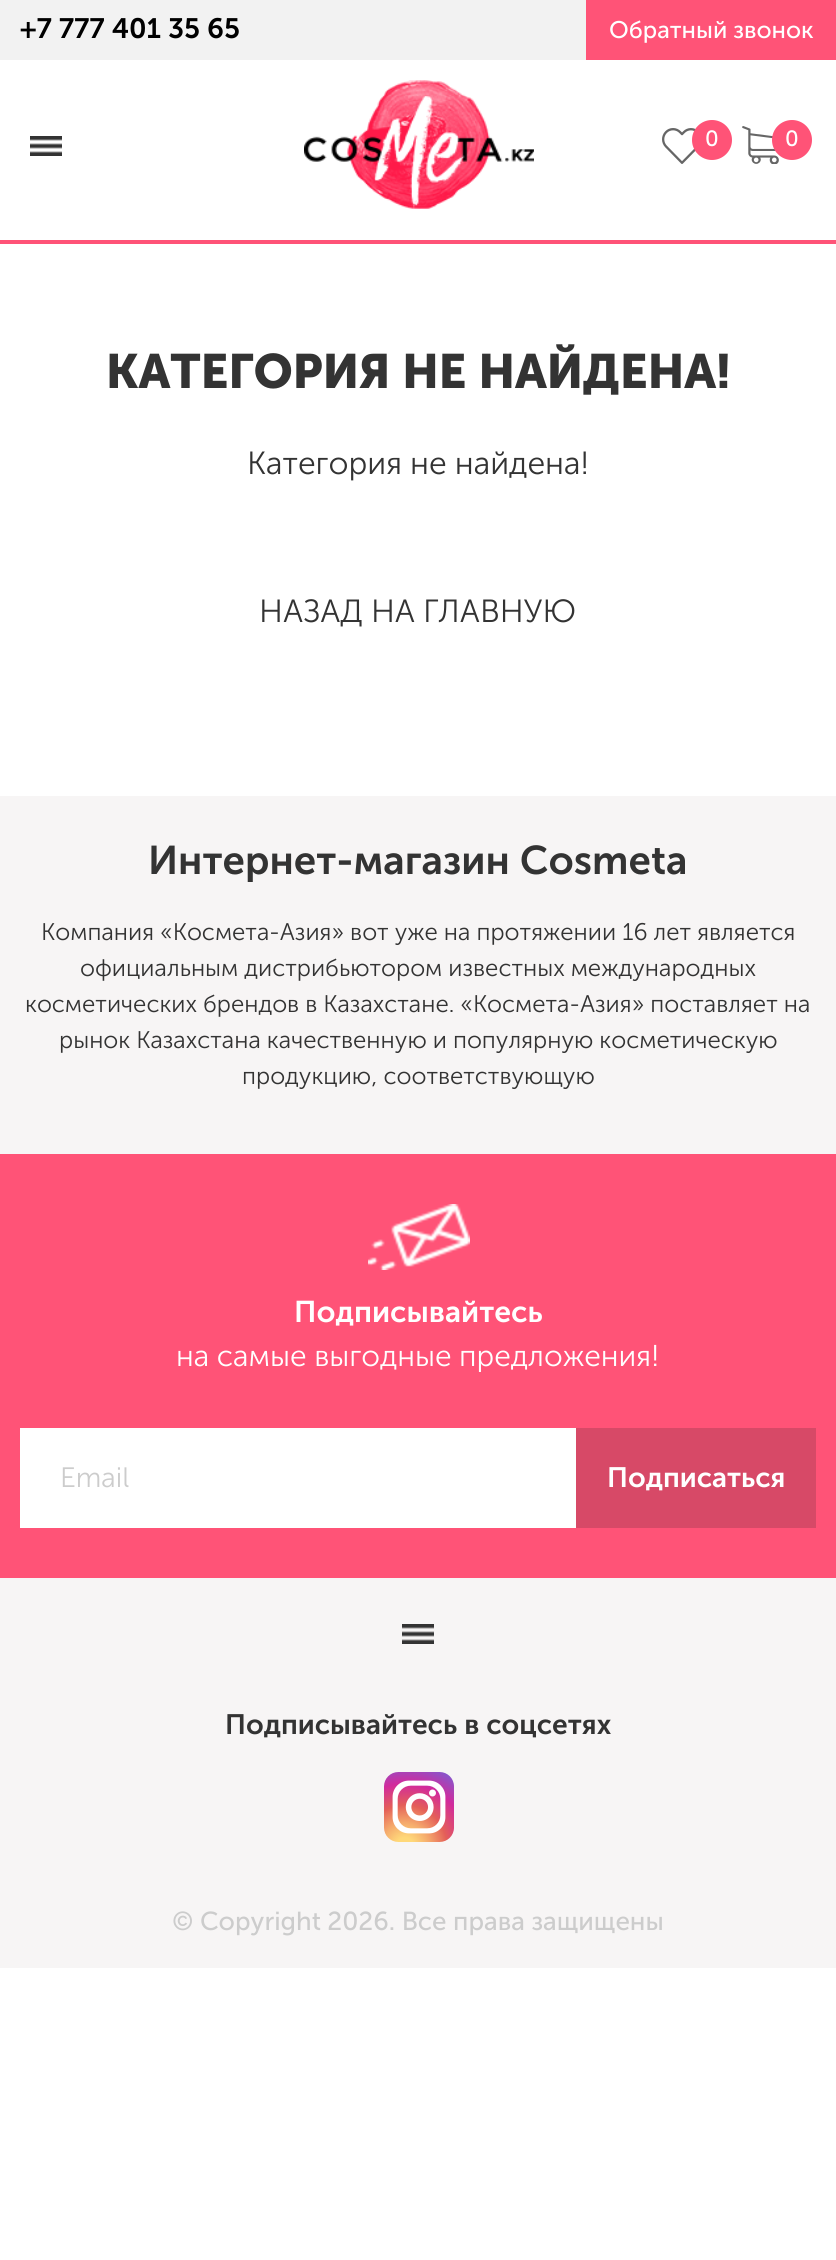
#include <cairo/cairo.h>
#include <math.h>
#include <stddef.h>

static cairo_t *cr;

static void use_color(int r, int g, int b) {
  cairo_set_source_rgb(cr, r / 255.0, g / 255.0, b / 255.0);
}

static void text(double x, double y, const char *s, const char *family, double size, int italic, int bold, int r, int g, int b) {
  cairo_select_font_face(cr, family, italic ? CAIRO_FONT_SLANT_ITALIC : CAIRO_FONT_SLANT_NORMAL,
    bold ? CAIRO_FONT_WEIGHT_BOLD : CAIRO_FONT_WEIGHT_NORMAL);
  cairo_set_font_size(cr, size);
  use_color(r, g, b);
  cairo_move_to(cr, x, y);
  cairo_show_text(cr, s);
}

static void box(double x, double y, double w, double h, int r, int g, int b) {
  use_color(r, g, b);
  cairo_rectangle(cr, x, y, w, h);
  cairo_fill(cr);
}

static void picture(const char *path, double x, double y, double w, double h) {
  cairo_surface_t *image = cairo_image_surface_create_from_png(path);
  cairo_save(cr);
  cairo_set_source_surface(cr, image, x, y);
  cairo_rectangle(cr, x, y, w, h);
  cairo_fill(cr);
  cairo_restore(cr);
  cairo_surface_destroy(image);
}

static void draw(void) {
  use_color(255, 255, 255);
  cairo_paint(cr);
  box(0, 240, 836, 4, 255, 83, 119);
  box(0, 0, 586, 60, 242, 242, 242);
  box(586, 0, 250, 60, 255, 83, 119);
  picture("img_01.png", 30, 136, 32, 20);
  picture("img_02.png", 304, 80, 230, 129);
  picture("img_03.png", 662, 128, 34, 36);
  cairo_arc(cr, 712, 140, 20, 0, 2 * M_PI);
  cairo_fill(cr);
  picture("img_04.png", 742, 126, 37, 38);
  cairo_arc(cr, 792, 140, 20, 0, 2 * M_PI);
  cairo_fill(cr);
  box(0, 796, 836, 358, 247, 245, 245);
  box(0, 1154, 836, 424, 255, 83, 119);
  picture("img_05.png", 368, 1204, 102, 66);
  box(20, 1428, 556, 100, 255, 255, 255);
  box(576, 1428, 240, 100, 215, 73, 103);
  box(0, 1578, 836, 390, 247, 245, 245);
  picture("img_06.png", 402, 1624, 32, 20);
  picture("img_07.png", 384, 1772, 70, 70);
  text(20, 38, "+7 777 401 35 65", "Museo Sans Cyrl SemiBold", 28, 0, 0, 0, 0, 0);
  text(609, 38, "Обратный звонок", "Museo Sans Cyrl", 24, 0, 0, 255, 255, 255);
  text(705, 146, "0", "Museo Sans Cyrl", 22, 0, 0, 255, 255, 255);
  text(785, 146, "0", "Museo Sans Cyrl", 22, 0, 0, 255, 255, 255);
  text(106, 388, "КАТЕГОРИЯ НЕ НАЙДЕНА!", "Museo Sans Cyrl", 48, 0, 1, 51, 51, 51);
  text(247, 474, "Категория не найдена!", "Museo Sans Cyrl Light", 32, 0, 0, 51, 51, 51);
  text(259, 622, "НАЗАД НА ГЛАВНУЮ", "Museo Sans Cyrl Light", 32, 0, 0, 51, 51, 51);
  text(148, 874, "Интернет-магазин Cosmeta", "Museo Sans Cyrl SemiBold", 40, 0, 0, 51, 51, 51);
  text(41, 940, "Компания «Космета-Азия» вот уже на протяжении 16 лет является", "Museo Sans Cyrl Light", 24, 0, 0, 51, 51, 51);
  text(80, 976, "официальным дистрибьютором известных международных", "Museo Sans Cyrl Light", 24, 0, 0, 51, 51, 51);
  text(25, 1012, "косметических брендов в Казахстане. «Космета-Азия» поставляет на", "Museo Sans Cyrl Light", 24, 0, 0, 51, 51, 51);
  text(59, 1048, "рынок Казахстана качественную и популярную косметическую", "Museo Sans Cyrl Light", 24, 0, 0, 51, 51, 51);
  text(242, 1084, "продукцию, соответствующую", "Museo Sans Cyrl Light", 24, 0, 0, 51, 51, 51);
  text(294, 1322, "Подписывайтесь", "Museo Sans Cyrl SemiBold", 30, 0, 0, 255, 255, 255);
  text(176, 1366, "на самые выгодные предложения!", "Museo Sans Cyrl Light", 30, 0, 0, 255, 255, 255);
  text(60, 1487, "Email", "Museo Sans Cyrl Light", 28, 0, 0, 204, 204, 204);
  text(607, 1487, "Подписаться", "Museo Sans Cyrl SemiBold", 28, 0, 0, 255, 255, 255);
  text(225, 1734, "Подписывайтесь в соцсетях", "Museo Sans Cyrl SemiBold", 28, 0, 0, 51, 51, 51);
  text(172, 1930, "© Copyright 2026. Все права защищены", "Museo Sans Cyrl", 26, 0, 0, 204, 204, 204);
}

int main(void) {
  cairo_surface_t *surface = cairo_image_surface_create(CAIRO_FORMAT_RGB24, 836, 2260);
  cr = cairo_create(surface);
  cairo_font_options_t *options = cairo_font_options_create();
  cairo_font_options_set_hint_metrics(options, CAIRO_HINT_METRICS_OFF);
  cairo_font_options_set_hint_style(options, CAIRO_HINT_STYLE_NONE);
  cairo_set_font_options(cr, options);
  cairo_set_miter_limit(cr, 4);
  draw();
  cairo_surface_write_to_png(surface, "out.png");
  cairo_font_options_destroy(options);
  cairo_destroy(cr);
  cairo_surface_destroy(surface);
  return 0;
}
